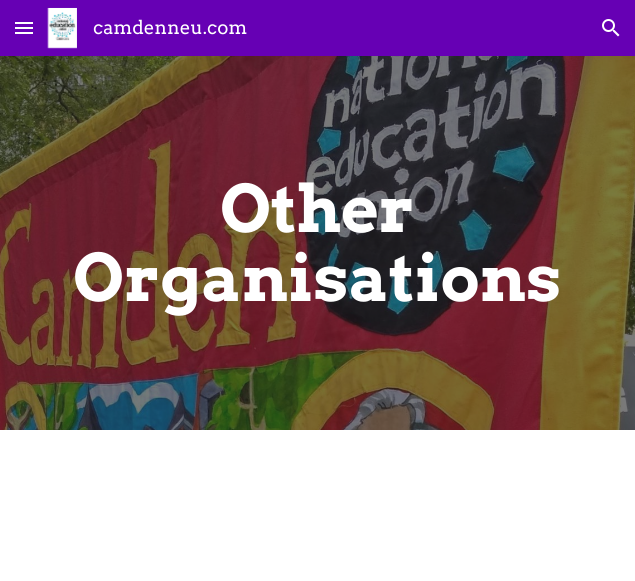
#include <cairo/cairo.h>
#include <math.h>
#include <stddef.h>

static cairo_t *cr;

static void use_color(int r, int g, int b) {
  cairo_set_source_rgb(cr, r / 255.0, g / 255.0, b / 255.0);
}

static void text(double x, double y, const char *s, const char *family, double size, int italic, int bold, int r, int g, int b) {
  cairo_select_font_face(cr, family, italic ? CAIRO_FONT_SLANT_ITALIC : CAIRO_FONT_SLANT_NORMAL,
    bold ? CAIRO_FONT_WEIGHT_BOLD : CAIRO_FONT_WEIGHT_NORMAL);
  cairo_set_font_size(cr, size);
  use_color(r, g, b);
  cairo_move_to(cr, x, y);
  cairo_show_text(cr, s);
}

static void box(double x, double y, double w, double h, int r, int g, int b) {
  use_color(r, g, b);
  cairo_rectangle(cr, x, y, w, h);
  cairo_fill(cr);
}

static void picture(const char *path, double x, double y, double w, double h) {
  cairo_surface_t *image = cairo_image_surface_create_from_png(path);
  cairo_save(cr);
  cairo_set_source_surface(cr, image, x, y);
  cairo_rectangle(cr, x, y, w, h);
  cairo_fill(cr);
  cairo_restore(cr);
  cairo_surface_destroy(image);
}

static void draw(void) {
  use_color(255, 255, 255);
  cairo_paint(cr);
  box(0, 0, 635, 56, 102, 0, 180);
  box(15, 22, 18, 2, 255, 255, 255);
  box(15, 27, 18, 2, 255, 255, 255);
  box(15, 32, 18, 2, 255, 255, 255);
  picture("img_01.png", 47, 7, 30, 42);
  picture("img_02.png", 602, 19, 18, 18);
  picture("img_03.png", 0, 56, 635, 374);
  text(93, 34, "camdenneu.com", "Arvo", 18.75, 0, 0, 255, 255, 255);
  text(220, 232, "Other", "Arvo", 65.25, 0, 1, 255, 255, 255);
  text(73, 301, "Organisations", "Arvo", 65.25, 0, 1, 255, 255, 255);
}

int main(void) {
  cairo_surface_t *surface = cairo_image_surface_create(CAIRO_FORMAT_RGB24, 635, 581);
  cr = cairo_create(surface);
  cairo_font_options_t *options = cairo_font_options_create();
  cairo_font_options_set_hint_metrics(options, CAIRO_HINT_METRICS_OFF);
  cairo_font_options_set_hint_style(options, CAIRO_HINT_STYLE_NONE);
  cairo_set_font_options(cr, options);
  cairo_set_miter_limit(cr, 4);
  draw();
  cairo_surface_write_to_png(surface, "out.png");
  cairo_font_options_destroy(options);
  cairo_destroy(cr);
  cairo_surface_destroy(surface);
  return 0;
}
